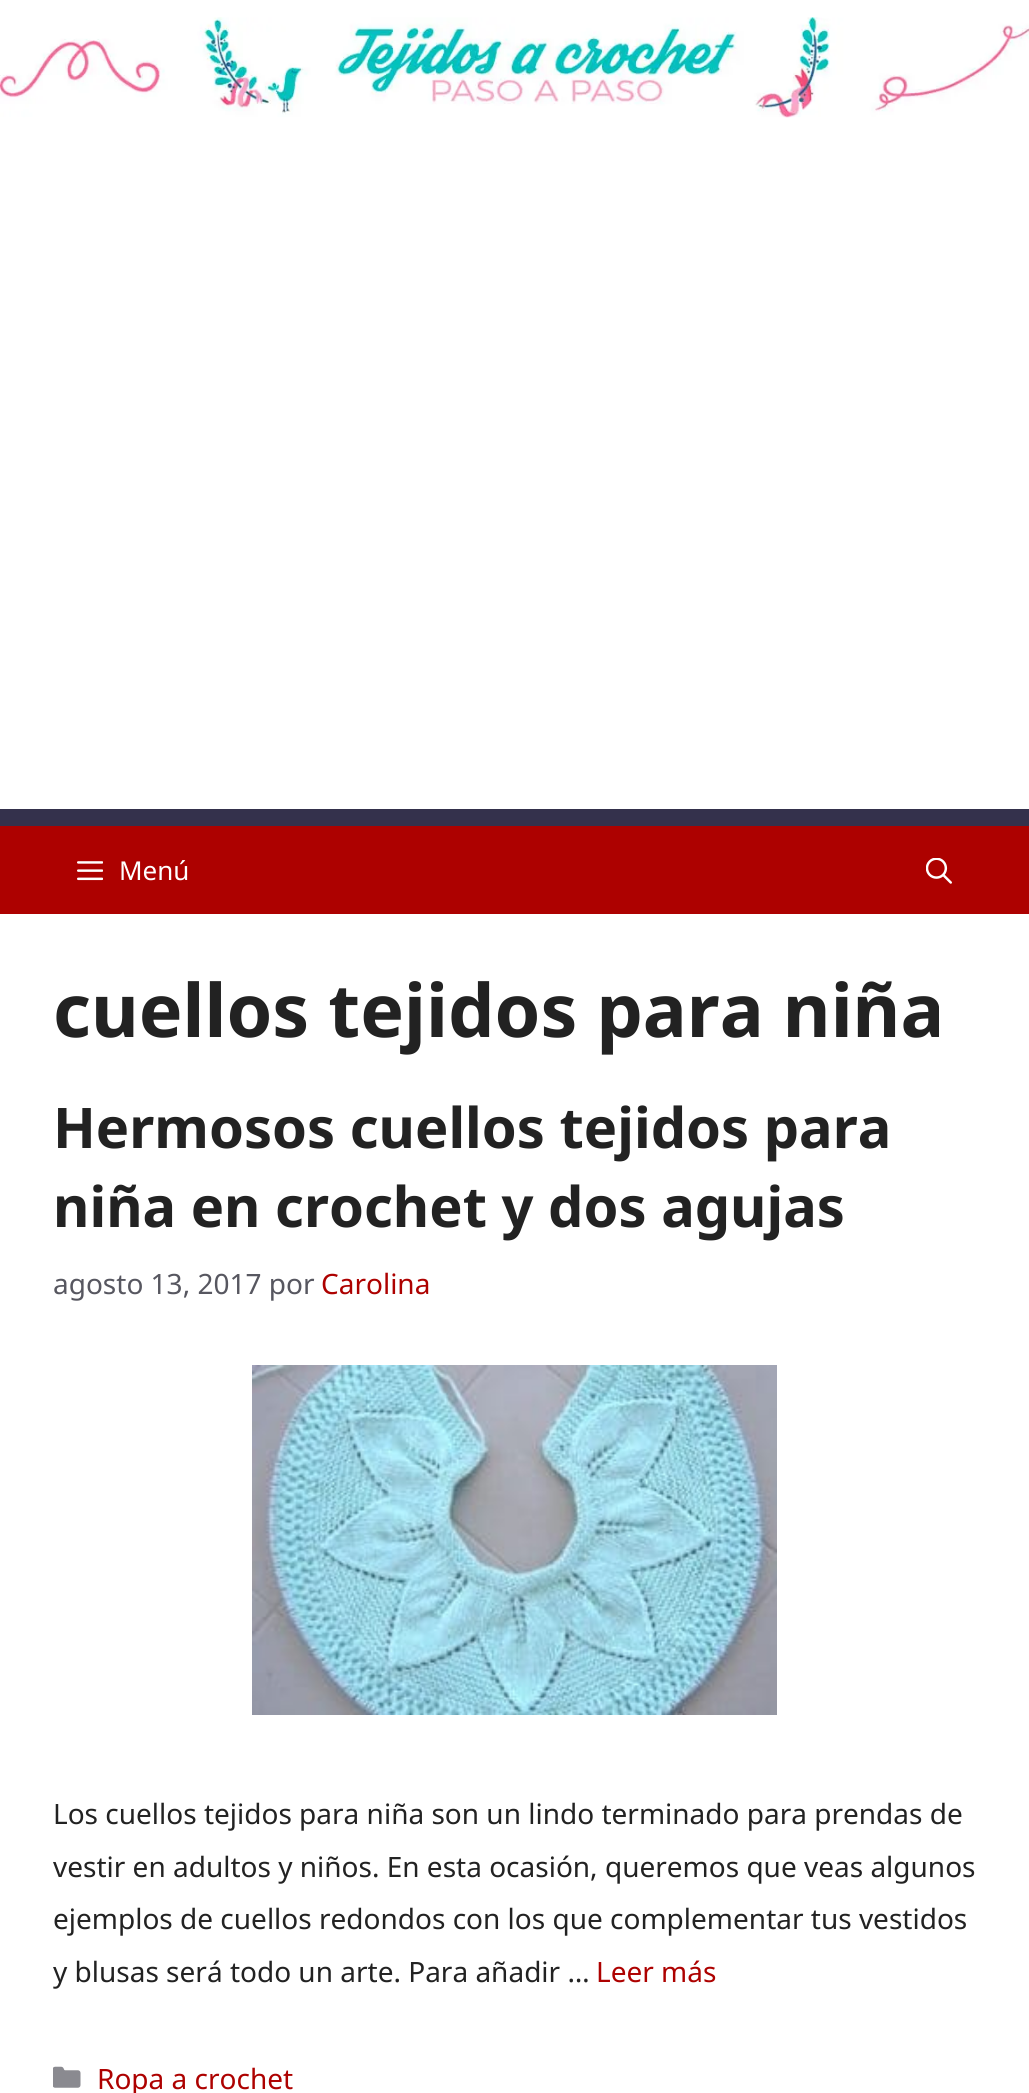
#include <cairo/cairo.h>
#include <math.h>
#include <stddef.h>

static cairo_t *cr;

static void use_color(int r, int g, int b) {
  cairo_set_source_rgb(cr, r / 255.0, g / 255.0, b / 255.0);
}

static void text(double x, double y, const char *s, const char *family, double size, int italic, int bold, int r, int g, int b) {
  cairo_select_font_face(cr, family, italic ? CAIRO_FONT_SLANT_ITALIC : CAIRO_FONT_SLANT_NORMAL,
    bold ? CAIRO_FONT_WEIGHT_BOLD : CAIRO_FONT_WEIGHT_NORMAL);
  cairo_set_font_size(cr, size);
  use_color(r, g, b);
  cairo_move_to(cr, x, y);
  cairo_show_text(cr, s);
}

static void box(double x, double y, double w, double h, int r, int g, int b) {
  use_color(r, g, b);
  cairo_rectangle(cr, x, y, w, h);
  cairo_fill(cr);
}

static void picture(const char *path, double x, double y, double w, double h) {
  cairo_surface_t *image = cairo_image_surface_create_from_png(path);
  cairo_save(cr);
  cairo_set_source_surface(cr, image, x, y);
  cairo_rectangle(cr, x, y, w, h);
  cairo_fill(cr);
  cairo_restore(cr);
  cairo_surface_destroy(image);
}

static void draw(void) {
  use_color(52, 49, 76);
  cairo_paint(cr);
  box(0, 0, 1029, 809, 255, 255, 255);
  picture("img_01.png", 0, 17, 1029, 101);
  box(0, 826, 1029, 88, 173, 1, 0);
  picture("img_02.png", 77, 861, 26, 20);
  picture("img_03.png", 926, 858, 26, 26);
  box(0, 914, 1029, 1179, 255, 255, 255);
  picture("img_04.png", 252, 1365, 525, 350);
  picture("img_05.png", 53, 2066, 28, 22);
  text(119, 880, "Menú", "Noto Sans", 26, 0, 0, 255, 255, 255);
  text(53, 1037, "cuellos tejidos para niña", "Noto Sans", 73.5, 0, 1, 34, 34, 34);
  text(53, 1148, "Hermosos cuellos tejidos para", "Noto Sans", 56, 0, 1, 34, 34, 34);
  text(53, 1227, "niña en crochet y dos agujas", "Noto Sans", 56, 0, 1, 34, 34, 34);
  text(53, 1294, "agosto 13, 2017 por", "Noto Sans", 28, 0, 0, 87, 87, 96);
  text(321, 1294, "Carolina", "Noto Sans", 28, 0, 0, 173, 1, 0);
  text(53, 1824, "Los cuellos tejidos para niña son un lindo terminado para prendas de", "Noto Sans", 28, 0, 0, 34, 34, 34);
  text(53, 1877, "vestir en adultos y niños. En esta ocasión, queremos que veas algunos", "Noto Sans", 28, 0, 0, 34, 34, 34);
  text(53, 1929, "ejemplos de cuellos redondos con los que complementar tus vestidos", "Noto Sans", 28, 0, 0, 34, 34, 34);
  text(53, 1982, "y blusas será todo un arte. Para añadir …", "Noto Sans", 28, 0, 0, 34, 34, 34);
  text(596, 1982, "Leer más", "Noto Sans", 28, 0, 0, 173, 1, 0);
  text(97, 2089, "Ropa a crochet", "Noto Sans", 28, 0, 0, 173, 1, 0);
}

int main(void) {
  cairo_surface_t *surface = cairo_image_surface_create(CAIRO_FORMAT_RGB24, 1029, 2093);
  cr = cairo_create(surface);
  cairo_font_options_t *options = cairo_font_options_create();
  cairo_font_options_set_hint_metrics(options, CAIRO_HINT_METRICS_OFF);
  cairo_font_options_set_hint_style(options, CAIRO_HINT_STYLE_NONE);
  cairo_set_font_options(cr, options);
  cairo_set_miter_limit(cr, 4);
  draw();
  cairo_surface_write_to_png(surface, "out.png");
  cairo_font_options_destroy(options);
  cairo_destroy(cr);
  cairo_surface_destroy(surface);
  return 0;
}
